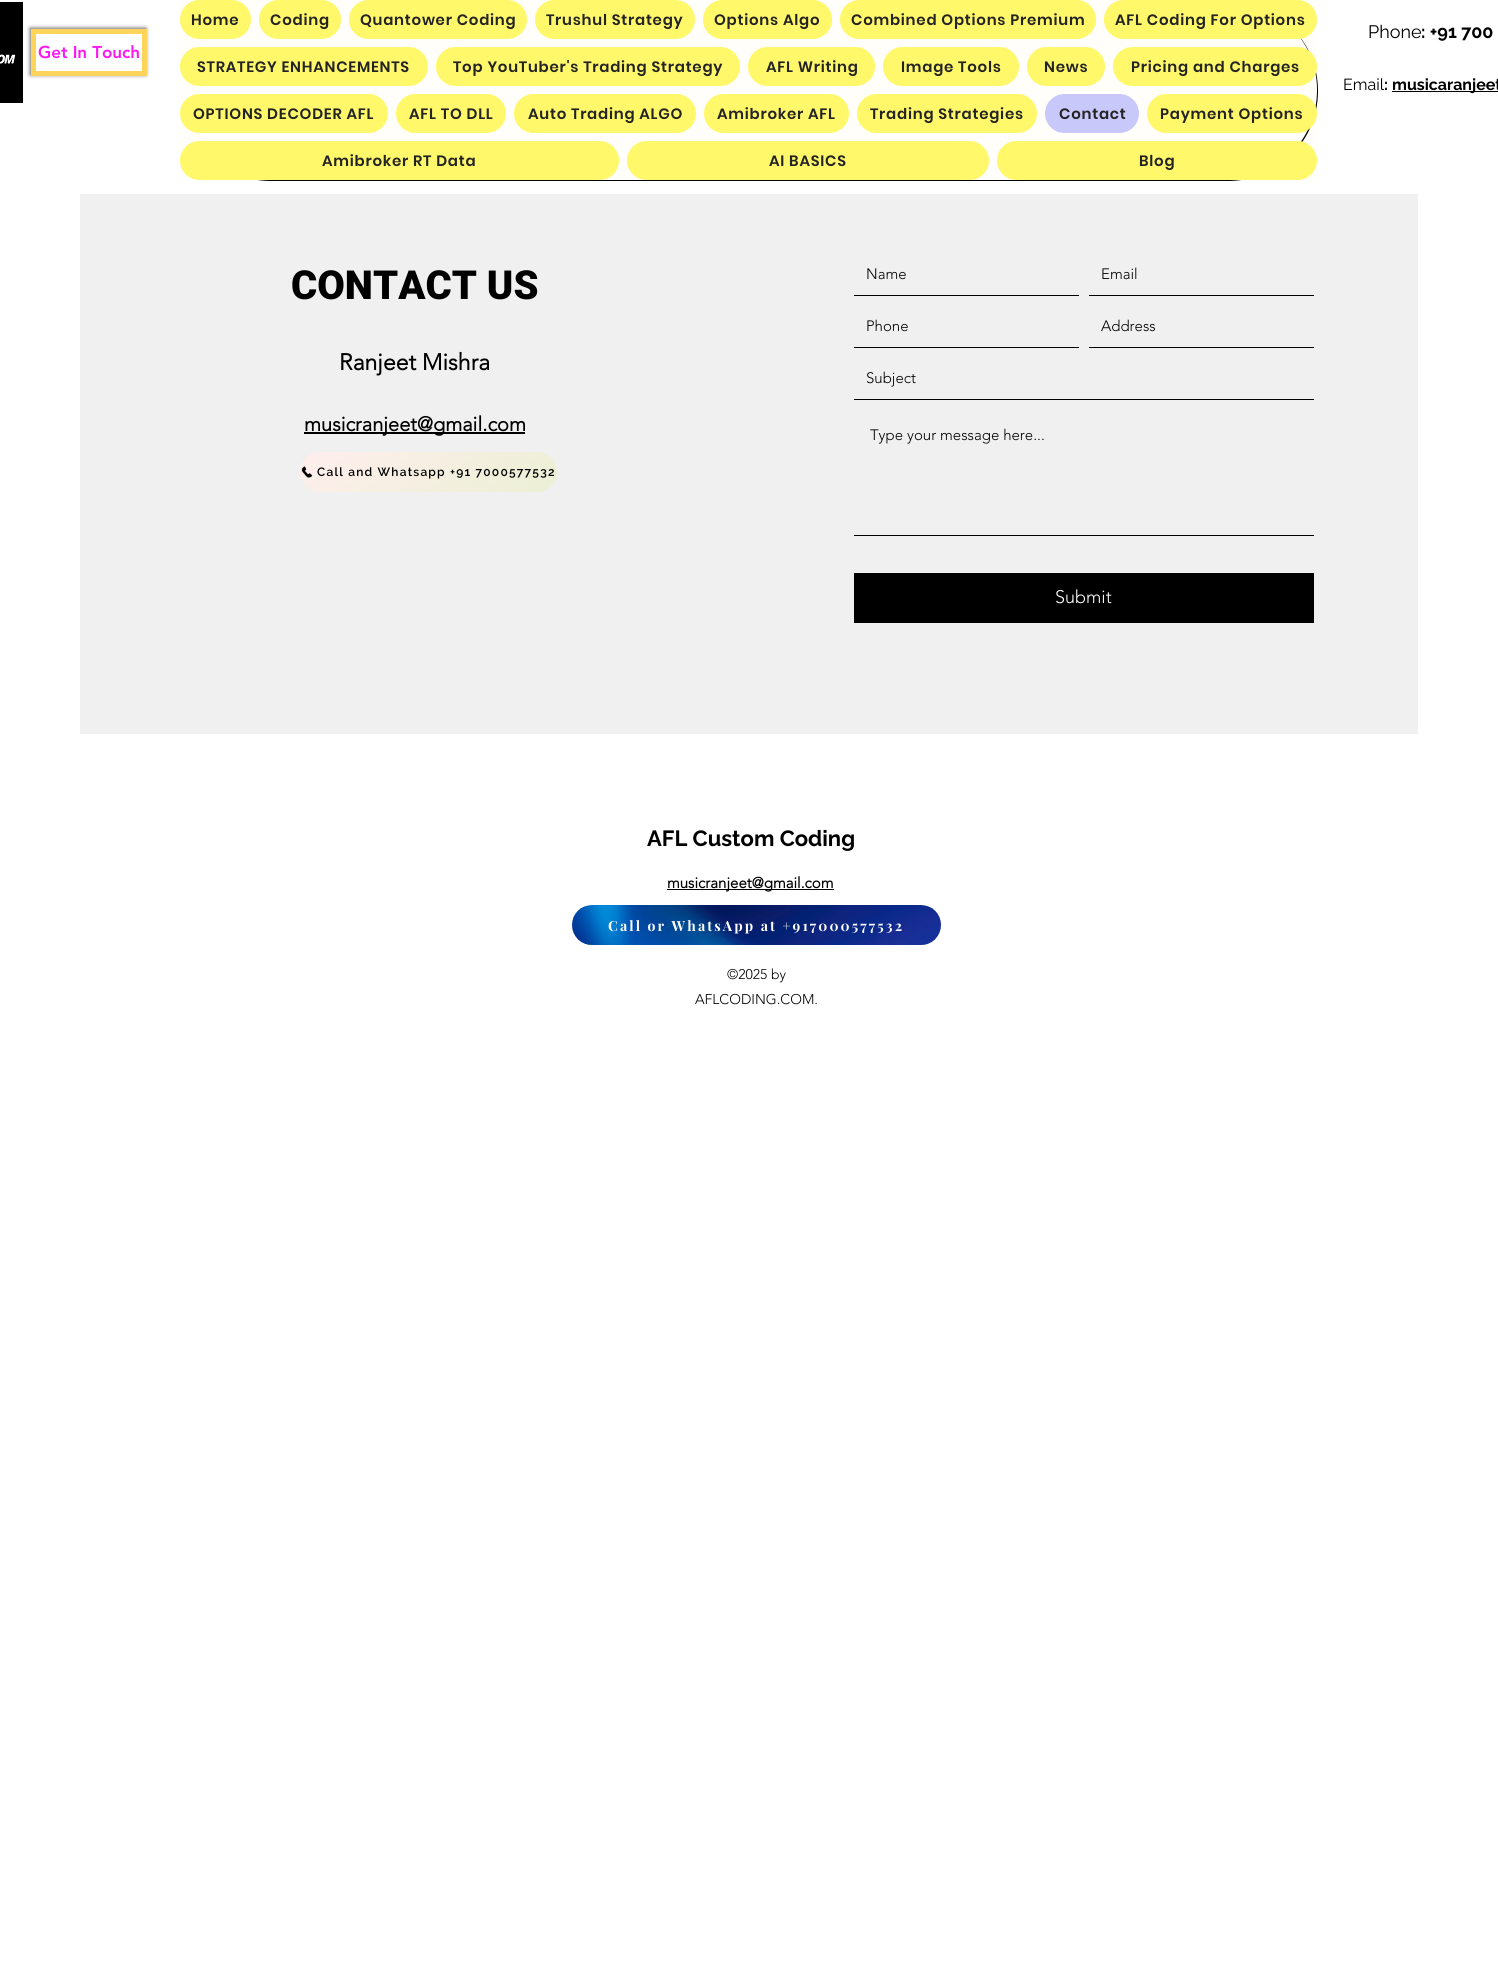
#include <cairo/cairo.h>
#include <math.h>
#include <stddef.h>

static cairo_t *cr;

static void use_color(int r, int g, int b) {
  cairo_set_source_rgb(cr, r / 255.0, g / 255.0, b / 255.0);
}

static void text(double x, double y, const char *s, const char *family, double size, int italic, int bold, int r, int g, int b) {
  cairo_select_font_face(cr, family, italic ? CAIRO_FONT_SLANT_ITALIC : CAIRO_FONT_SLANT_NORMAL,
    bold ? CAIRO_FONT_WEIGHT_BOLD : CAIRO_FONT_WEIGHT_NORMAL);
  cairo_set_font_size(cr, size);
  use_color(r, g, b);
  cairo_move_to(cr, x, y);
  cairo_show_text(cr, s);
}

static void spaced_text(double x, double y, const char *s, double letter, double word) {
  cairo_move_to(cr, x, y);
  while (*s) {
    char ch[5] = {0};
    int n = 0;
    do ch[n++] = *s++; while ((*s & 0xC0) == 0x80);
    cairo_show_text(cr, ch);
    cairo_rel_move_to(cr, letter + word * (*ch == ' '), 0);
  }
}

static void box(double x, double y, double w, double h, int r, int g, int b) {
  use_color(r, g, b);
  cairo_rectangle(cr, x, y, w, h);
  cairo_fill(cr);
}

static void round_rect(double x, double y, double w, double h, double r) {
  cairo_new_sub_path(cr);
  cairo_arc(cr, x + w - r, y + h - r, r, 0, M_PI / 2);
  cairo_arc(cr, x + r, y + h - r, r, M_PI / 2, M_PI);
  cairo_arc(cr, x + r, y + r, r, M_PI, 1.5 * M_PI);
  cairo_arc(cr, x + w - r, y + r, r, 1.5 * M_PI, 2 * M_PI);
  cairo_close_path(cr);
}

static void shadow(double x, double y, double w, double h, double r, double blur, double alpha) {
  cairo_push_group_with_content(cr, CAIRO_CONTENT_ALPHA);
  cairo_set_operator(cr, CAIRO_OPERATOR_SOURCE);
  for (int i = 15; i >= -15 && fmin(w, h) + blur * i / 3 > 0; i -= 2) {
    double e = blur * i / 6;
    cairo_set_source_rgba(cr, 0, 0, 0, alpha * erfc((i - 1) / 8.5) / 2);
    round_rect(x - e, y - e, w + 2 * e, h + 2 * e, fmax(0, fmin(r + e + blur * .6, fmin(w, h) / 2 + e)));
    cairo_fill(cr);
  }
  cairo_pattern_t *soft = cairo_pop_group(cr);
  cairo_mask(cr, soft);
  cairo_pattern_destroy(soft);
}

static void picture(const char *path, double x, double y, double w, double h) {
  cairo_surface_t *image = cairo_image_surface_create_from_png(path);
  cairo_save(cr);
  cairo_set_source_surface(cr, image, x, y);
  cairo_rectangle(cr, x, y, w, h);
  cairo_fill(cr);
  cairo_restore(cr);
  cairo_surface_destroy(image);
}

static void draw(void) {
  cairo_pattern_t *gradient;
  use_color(255, 255, 255);
  cairo_paint(cr);
  picture("img_01.png", 0, 2, 23, 101);
  use_color(0, 0, 0);
  cairo_new_path(cr);
  cairo_move_to(cr, 207, 154);
  cairo_curve_to(cr, 223, 171, 246, 181, 271, 181);
  cairo_line_to(cr, 1228, 181);
  cairo_curve_to(cr, 1278, 181, 1318, 141, 1318, 91);
  cairo_curve_to(cr, 1318, 66, 1308, 43, 1291, 27);
  cairo_curve_to(cr, 1307, 43, 1317, 65, 1317, 90);
  cairo_curve_to(cr, 1317, 140, 1277, 180, 1227, 180);
  cairo_line_to(cr, 270, 180);
  cairo_curve_to(cr, 245, 180, 223, 170, 207, 154);
  cairo_close_path(cr);
  cairo_fill(cr);
  cairo_set_source_rgba(cr, 1, 0.871, 0.373, 0.03);
  cairo_rectangle(cr, 180, 0, 1137, 180);
  cairo_fill(cr);
  use_color(255, 248, 107);
  round_rect(180, 0, 71, 39, 19.5);
  cairo_fill(cr);
  round_rect(259, 0, 82, 39, 19.5);
  cairo_fill(cr);
  round_rect(349, 0, 178, 39, 19.5);
  cairo_fill(cr);
  round_rect(535, 0, 160, 39, 19.5);
  cairo_fill(cr);
  round_rect(703, 0, 129, 39, 19.5);
  cairo_fill(cr);
  round_rect(840, 0, 256, 39, 19.5);
  cairo_fill(cr);
  round_rect(1104, 0, 213, 39, 19.5);
  cairo_fill(cr);
  round_rect(180, 47, 248, 39, 19.5);
  cairo_fill(cr);
  round_rect(436, 47, 304, 39, 19.5);
  cairo_fill(cr);
  round_rect(748, 47, 127, 39, 19.5);
  cairo_fill(cr);
  round_rect(883, 47, 136, 39, 19.5);
  cairo_fill(cr);
  round_rect(1027, 47, 78, 39, 19.5);
  cairo_fill(cr);
  round_rect(1113, 47, 204, 39, 19.5);
  cairo_fill(cr);
  round_rect(180, 94, 208, 39, 19.5);
  cairo_fill(cr);
  round_rect(396, 94, 110, 39, 19.5);
  cairo_fill(cr);
  round_rect(514, 94, 182, 39, 19.5);
  cairo_fill(cr);
  round_rect(704, 94, 145, 39, 19.5);
  cairo_fill(cr);
  round_rect(857, 94, 180, 39, 19.5);
  cairo_fill(cr);
  use_color(201, 200, 251);
  round_rect(1045, 94, 94, 39, 19.5);
  cairo_fill(cr);
  use_color(255, 248, 107);
  round_rect(1147, 94, 170, 39, 19.5);
  cairo_fill(cr);
  round_rect(180, 141, 439, 39, 19.5);
  cairo_fill(cr);
  round_rect(627, 141, 362, 39, 19.5);
  cairo_fill(cr);
  round_rect(997, 141, 320, 39, 19.5);
  cairo_fill(cr);
  cairo_save(cr);
  cairo_set_fill_rule(cr, CAIRO_FILL_RULE_EVEN_ODD);
  cairo_new_path(cr);
  cairo_move_to(cr, 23, 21);
  cairo_line_to(cr, 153, 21);
  cairo_line_to(cr, 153, 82);
  cairo_line_to(cr, 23, 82);
  cairo_close_path(cr);
  cairo_move_to(cr, 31, 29);
  cairo_line_to(cr, 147, 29);
  cairo_line_to(cr, 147, 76);
  cairo_line_to(cr, 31, 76);
  cairo_close_path(cr);
  cairo_clip(cr);
  use_color(0, 0, 0);
  shadow(30, 28, 116, 47, 0, 2, 0.6);
  cairo_restore(cr);
  cairo_rectangle(cr, 33.5, 31.5, 111, 42);
  use_color(255, 212, 90);
  cairo_set_line_width(cr, 5);
  cairo_stroke(cr);
  box(1392, 91, 106, 1, 0, 0, 0);
  box(80, 194, 1338, 540, 240, 240, 240);
  box(304, 432, 221, 2, 0, 0, 0);
  use_color(235, 240, 212);
  round_rect(300, 452, 257, 40, 20);
  cairo_fill(cr);
  gradient = cairo_pattern_create_linear(377, 398, 480, 546);
  cairo_pattern_add_color_stop_rgba(gradient, 0, 1, 0.933, 0.933, 1);
  cairo_pattern_add_color_stop_rgba(gradient, 1, 1, 0.933, 0.933, 0);
  cairo_set_source(cr, gradient);
  cairo_pattern_destroy(gradient);
  round_rect(300, 452, 257, 40, 20);
  cairo_fill(cr);
  picture("img_02.png", 301, 466, 12, 12);
  box(854, 295, 225, 1, 0, 0, 0);
  box(1089, 295, 225, 1, 0, 0, 0);
  box(854, 347, 225, 1, 0, 0, 0);
  box(1089, 347, 225, 1, 0, 0, 0);
  box(854, 399, 460, 1, 0, 0, 0);
  box(854, 535, 460, 1, 0, 0, 0);
  box(854, 573, 460, 50, 0, 0, 0);
  box(667, 889, 167, 1, 0, 0, 0);
  picture("img_03.png", 572, 905, 369, 40);
  cairo_select_font_face(cr, "Poppins SemiBold", CAIRO_FONT_SLANT_NORMAL, CAIRO_FONT_WEIGHT_NORMAL);
  cairo_set_font_size(cr, 15);
  use_color(36, 35, 35);
  spaced_text(191, 25, "Home", 0.75, 0);
  spaced_text(270, 25, "Coding", 0.75, 0);
  spaced_text(360, 25, "Quantower Coding", 0.75, 0);
  spaced_text(546, 25, "Trushul Strategy", 0.75, 0);
  spaced_text(714, 25, "Options Algo", 0.75, 0);
  spaced_text(851, 25, "Combined Options Premium", 0.75, 0);
  spaced_text(1115, 25, "AFL Coding For Options", 0.75, 0);
  spaced_text(197, 72, "STRATEGY ENHANCEMENTS", 0.75, 0);
  spaced_text(453, 72, "Top YouTuber's Trading Strategy", 0.75, 0);
  spaced_text(766, 72, "AFL Writing", 0.75, 0);
  spaced_text(901, 72, "Image Tools", 0.75, 0);
  spaced_text(1044, 72, "News", 0.75, 0);
  spaced_text(1131, 72, "Pricing and Charges", 0.75, 0);
  spaced_text(193, 119, "OPTIONS DECODER AFL", 0.75, 0);
  spaced_text(409, 119, "AFL TO DLL", 0.75, 0);
  spaced_text(528, 119, "Auto Trading ALGO", 0.75, 0);
  spaced_text(717, 119, "Amibroker AFL", 0.75, 0);
  spaced_text(870, 119, "Trading Strategies", 0.75, 0);
  spaced_text(1059, 119, "Contact", 0.75, 0);
  spaced_text(1160, 119, "Payment Options", 0.75, 0);
  spaced_text(322, 166, "Amibroker RT Data", 0.75, 0);
  spaced_text(769, 166, "AI BASICS", 0.75, 0);
  spaced_text(1139, 166, "Blog", 0.75, 0);
  text(1368, 38, "Phone", "Raleway", 18, 0, 0, 0, 0, 0);
  text(1421, 38, ": +91 700", "Raleway", 18, 0, 1, 0, 0, 0);
  text(38, 58, "Get In Touch", "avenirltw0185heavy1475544 Black", 17, 0, 0, 252, 23, 245);
  text(1343, 90, "Email", "Raleway", 16, 0, 0, 0, 0, 0);
  text(1384, 90, ":", "Raleway", 16, 0, 1, 0, 0, 0);
  text(1392, 90, "musicaranjeet", "Raleway", 16, 0, 1, 0, 0, 0);
  text(291, 299, "CONTACT US", "Roboto Black", 40, 0, 0, 0, 0, 0);
  text(339, 370, "Ranjeet Mishra", "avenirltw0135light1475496", 23, 0, 1, 0, 0, 0);
  text(304, 431, "musicranjeet@gmail.com", "avenirltw0135light1475496", 20, 0, 1, 0, 0, 0);
  cairo_select_font_face(cr, "Raleway SemiBold", CAIRO_FONT_SLANT_NORMAL, CAIRO_FONT_WEIGHT_NORMAL);
  cairo_set_font_size(cr, 12);
  spaced_text(317, 476, "Call and Whatsapp +91 7000577532", 1.2, 0);
  text(866, 279, "Name", "avenirltw0135light1475496 Light", 15, 0, 0, 0, 0, 0);
  text(1101, 279, "Email", "avenirltw0135light1475496 Light", 15, 0, 0, 0, 0, 0);
  text(866, 331, "Phone", "avenirltw0135light1475496 Light", 15, 0, 0, 0, 0, 0);
  text(1101, 331, "Address", "avenirltw0135light1475496 Light", 15, 0, 0, 0, 0, 0);
  text(866, 383, "Subject", "avenirltw0135light1475496 Light", 15, 0, 0, 0, 0, 0);
  text(870, 440, "Type your message here...", "avenirltw0135light1475496 Light", 15, 0, 0, 0, 0, 0);
  text(1055, 603, "Submit", "avenirltw0135light1475496 Light", 18, 0, 0, 255, 255, 255);
  text(647, 846, "AFL Custom Coding", "Raleway", 22, 0, 1, 0, 0, 0);
  text(667, 888, "musicranjeet@gmail.com", "avenirltw0135light1475496", 15, 0, 1, 0, 0, 0);
  cairo_select_font_face(cr, "Playfair Display", CAIRO_FONT_SLANT_NORMAL, CAIRO_FONT_WEIGHT_BOLD);
  cairo_set_font_size(cr, 14);
  use_color(255, 255, 255);
  spaced_text(608, 931, "Call or WhatsApp at +917000577532", 2.1, 0);
  text(727, 979, "©2025 by", "avenirltw0135light1475496 Light", 14, 0, 0, 0, 0, 0);
  text(695, 1004, "AFLCODING.COM.", "avenirltw0135light1475496 Light", 14, 0, 0, 0, 0, 0);
}

int main(void) {
  cairo_surface_t *surface = cairo_image_surface_create(CAIRO_FORMAT_RGB24, 1498, 1985);
  cr = cairo_create(surface);
  cairo_font_options_t *options = cairo_font_options_create();
  cairo_font_options_set_hint_metrics(options, CAIRO_HINT_METRICS_OFF);
  cairo_font_options_set_hint_style(options, CAIRO_HINT_STYLE_NONE);
  cairo_set_font_options(cr, options);
  cairo_set_miter_limit(cr, 4);
  draw();
  cairo_surface_write_to_png(surface, "out.png");
  cairo_font_options_destroy(options);
  cairo_destroy(cr);
  cairo_surface_destroy(surface);
  return 0;
}
